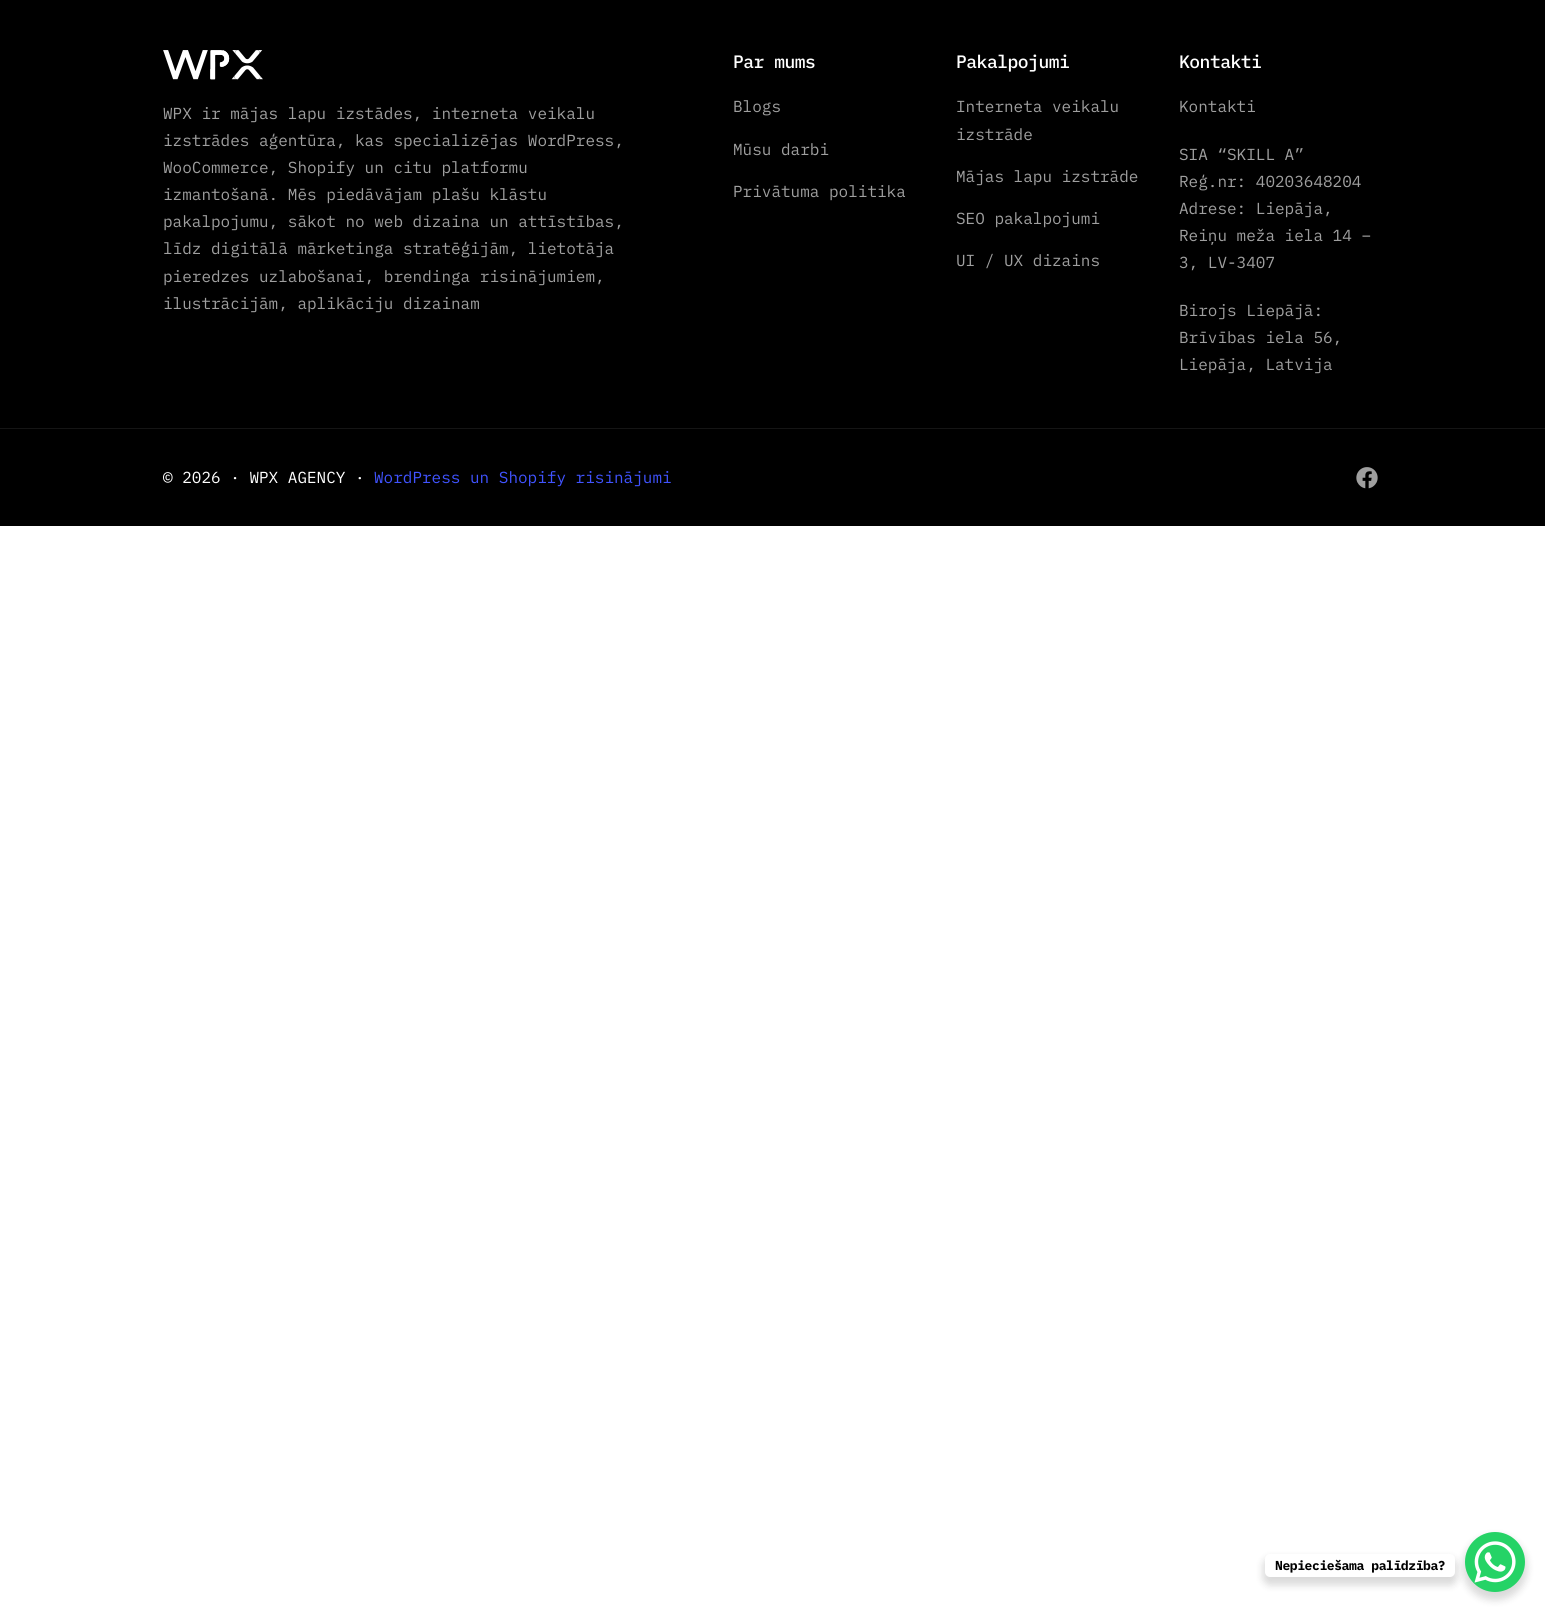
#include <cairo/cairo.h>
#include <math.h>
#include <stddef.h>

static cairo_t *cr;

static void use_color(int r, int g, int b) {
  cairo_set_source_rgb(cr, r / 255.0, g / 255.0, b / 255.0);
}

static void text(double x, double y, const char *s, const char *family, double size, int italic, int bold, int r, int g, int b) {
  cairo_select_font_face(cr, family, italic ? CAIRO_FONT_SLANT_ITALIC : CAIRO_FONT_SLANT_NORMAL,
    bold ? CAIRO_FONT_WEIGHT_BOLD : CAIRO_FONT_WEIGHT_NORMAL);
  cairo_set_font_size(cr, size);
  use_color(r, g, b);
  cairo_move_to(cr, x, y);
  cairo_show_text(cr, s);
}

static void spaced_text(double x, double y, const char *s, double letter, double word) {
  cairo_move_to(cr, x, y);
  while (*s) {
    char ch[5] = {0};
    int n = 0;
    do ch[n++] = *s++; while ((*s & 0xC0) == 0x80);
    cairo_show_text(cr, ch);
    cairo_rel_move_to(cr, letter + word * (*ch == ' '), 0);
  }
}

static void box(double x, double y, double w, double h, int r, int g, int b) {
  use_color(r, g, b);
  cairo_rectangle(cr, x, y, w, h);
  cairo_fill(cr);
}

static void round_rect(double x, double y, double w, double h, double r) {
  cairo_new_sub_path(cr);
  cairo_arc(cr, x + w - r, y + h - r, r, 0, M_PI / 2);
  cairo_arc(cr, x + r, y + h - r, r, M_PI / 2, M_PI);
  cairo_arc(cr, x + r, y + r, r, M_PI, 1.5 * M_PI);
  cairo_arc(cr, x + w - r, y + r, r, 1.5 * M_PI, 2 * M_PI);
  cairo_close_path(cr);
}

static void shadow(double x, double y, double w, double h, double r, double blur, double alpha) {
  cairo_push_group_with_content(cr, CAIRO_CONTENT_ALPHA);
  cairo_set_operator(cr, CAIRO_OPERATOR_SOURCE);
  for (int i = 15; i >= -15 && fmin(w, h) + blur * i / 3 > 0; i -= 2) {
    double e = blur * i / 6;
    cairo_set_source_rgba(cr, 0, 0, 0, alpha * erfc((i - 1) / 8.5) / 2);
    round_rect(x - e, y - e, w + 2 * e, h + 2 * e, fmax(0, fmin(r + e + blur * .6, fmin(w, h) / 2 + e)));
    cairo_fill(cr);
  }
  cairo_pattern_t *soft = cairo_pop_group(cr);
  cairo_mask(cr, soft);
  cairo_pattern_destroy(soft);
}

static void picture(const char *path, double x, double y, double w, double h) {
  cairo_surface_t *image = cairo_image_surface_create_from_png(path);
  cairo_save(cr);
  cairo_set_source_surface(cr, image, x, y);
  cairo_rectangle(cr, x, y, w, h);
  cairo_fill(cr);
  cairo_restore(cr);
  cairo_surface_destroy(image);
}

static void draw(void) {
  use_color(255, 255, 255);
  cairo_paint(cr);
  box(0, 0, 1545, 428, 0, 0, 0);
  picture("img_01.png", 163, 50, 100, 30);
  box(0, 429, 1545, 97, 0, 0, 0);
  box(0, 428, 1545, 1, 21, 21, 21);
  picture("img_02.png", 1356, 467, 22, 22);
  use_color(0, 0, 0);
  shadow(1463, 1536, 64, 64, 32, 4, 0.15);
  use_color(37, 211, 102);
  cairo_arc(cr, 1495, 1562, 30, 0, 2 * M_PI);
  cairo_fill(cr);
  use_color(0, 0, 0);
  shadow(1263, 1558, 194, 27, 7, 4, 0.15);
  use_color(255, 255, 255);
  round_rect(1265, 1554, 190, 23, 5);
  cairo_fill(cr);
  picture("img_03.png", 1474, 1541, 42, 42);
  text(163, 119, "WPX ir mājas lapu izstādes, interneta veikalu", "IBM Plex Mono", 16, 0, 0, 159, 159, 159);
  text(163, 146, "izstrādes aģentūra, kas specializējas WordPress,", "IBM Plex Mono", 16, 0, 0, 159, 159, 159);
  text(163, 173, "WooCommerce, Shopify un citu platformu", "IBM Plex Mono", 16, 0, 0, 159, 159, 159);
  text(163, 200, "izmantošanā. Mēs piedāvājam plašu klāstu", "IBM Plex Mono", 16, 0, 0, 159, 159, 159);
  text(163, 227, "pakalpojumu, sākot no web dizaina un attīstības,", "IBM Plex Mono", 16, 0, 0, 159, 159, 159);
  text(163, 254, "līdz digitālā mārketinga stratēģijām, lietotāja", "IBM Plex Mono", 16, 0, 0, 159, 159, 159);
  text(163, 282, "pieredzes uzlabošanai, brendinga risinājumiem,", "IBM Plex Mono", 16, 0, 0, 159, 159, 159);
  text(163, 309, "ilustrācijām, aplikāciju dizainam", "IBM Plex Mono", 16, 0, 0, 159, 159, 159);
  cairo_select_font_face(cr, "IBM Plex Mono Medium", CAIRO_FONT_SLANT_NORMAL, CAIRO_FONT_WEIGHT_NORMAL);
  cairo_set_font_size(cr, 18);
  use_color(255, 255, 255);
  spaced_text(733, 68, "Par mums", -0.5, 0);
  text(733, 112, "Blogs", "IBM Plex Mono", 16, 0, 0, 159, 159, 159);
  text(733, 155, "Mūsu darbi", "IBM Plex Mono", 16, 0, 0, 159, 159, 159);
  text(733, 197, "Privātuma politika", "IBM Plex Mono", 16, 0, 0, 159, 159, 159);
  cairo_select_font_face(cr, "IBM Plex Mono Medium", CAIRO_FONT_SLANT_NORMAL, CAIRO_FONT_WEIGHT_NORMAL);
  cairo_set_font_size(cr, 18);
  use_color(255, 255, 255);
  spaced_text(956, 68, "Pakalpojumi", -0.5, 0);
  text(956, 112, "Interneta veikalu", "IBM Plex Mono", 16, 0, 0, 159, 159, 159);
  text(956, 140, "izstrāde", "IBM Plex Mono", 16, 0, 0, 159, 159, 159);
  text(956, 182, "Mājas lapu izstrāde", "IBM Plex Mono", 16, 0, 0, 159, 159, 159);
  text(956, 224, "SEO pakalpojumi", "IBM Plex Mono", 16, 0, 0, 159, 159, 159);
  text(956, 266, "UI / UX dizains", "IBM Plex Mono", 16, 0, 0, 159, 159, 159);
  cairo_select_font_face(cr, "IBM Plex Mono Medium", CAIRO_FONT_SLANT_NORMAL, CAIRO_FONT_WEIGHT_NORMAL);
  cairo_set_font_size(cr, 18);
  use_color(255, 255, 255);
  spaced_text(1179, 68, "Kontakti", -0.5, 0);
  text(1179, 112, "Kontakti", "IBM Plex Mono", 16, 0, 0, 159, 159, 159);
  text(1179, 160, "SIA “SKILL A”", "IBM Plex Mono", 16, 0, 0, 159, 159, 159);
  text(1179, 187, "Reģ.nr: 40203648204", "IBM Plex Mono", 16, 0, 0, 159, 159, 159);
  text(1179, 214, "Adrese: Liepāja,", "IBM Plex Mono", 16, 0, 0, 159, 159, 159);
  text(1179, 241, "Reiņu meža iela 14 –", "IBM Plex Mono", 16, 0, 0, 159, 159, 159);
  text(1179, 268, "3, LV-3407", "IBM Plex Mono", 16, 0, 0, 159, 159, 159);
  text(1179, 316, "Birojs Liepājā:", "IBM Plex Mono", 16, 0, 0, 159, 159, 159);
  text(1179, 343, "Brīvības iela 56,", "IBM Plex Mono", 16, 0, 0, 159, 159, 159);
  text(1179, 370, "Liepāja, Latvija", "IBM Plex Mono", 16, 0, 0, 159, 159, 159);
  text(163, 483, "© 2026 · WPX AGENCY ·", "IBM Plex Mono", 16, 0, 0, 255, 255, 255);
  text(374, 483, "WordPress un Shopify risinājumi", "IBM Plex Mono", 16, 0, 0, 64, 83, 255);
  cairo_select_font_face(cr, "IBM Plex Mono", CAIRO_FONT_SLANT_NORMAL, CAIRO_FONT_WEIGHT_BOLD);
  cairo_set_font_size(cr, 13);
  use_color(0, 0, 0);
  spaced_text(1275, 1570, "Nepieciešama palīdzība?", -0.4, 0);
}

int main(void) {
  cairo_surface_t *surface = cairo_image_surface_create(CAIRO_FORMAT_RGB24, 1545, 1612);
  cr = cairo_create(surface);
  cairo_font_options_t *options = cairo_font_options_create();
  cairo_font_options_set_hint_metrics(options, CAIRO_HINT_METRICS_OFF);
  cairo_font_options_set_hint_style(options, CAIRO_HINT_STYLE_NONE);
  cairo_set_font_options(cr, options);
  cairo_set_miter_limit(cr, 4);
  draw();
  cairo_surface_write_to_png(surface, "out.png");
  cairo_font_options_destroy(options);
  cairo_destroy(cr);
  cairo_surface_destroy(surface);
  return 0;
}
